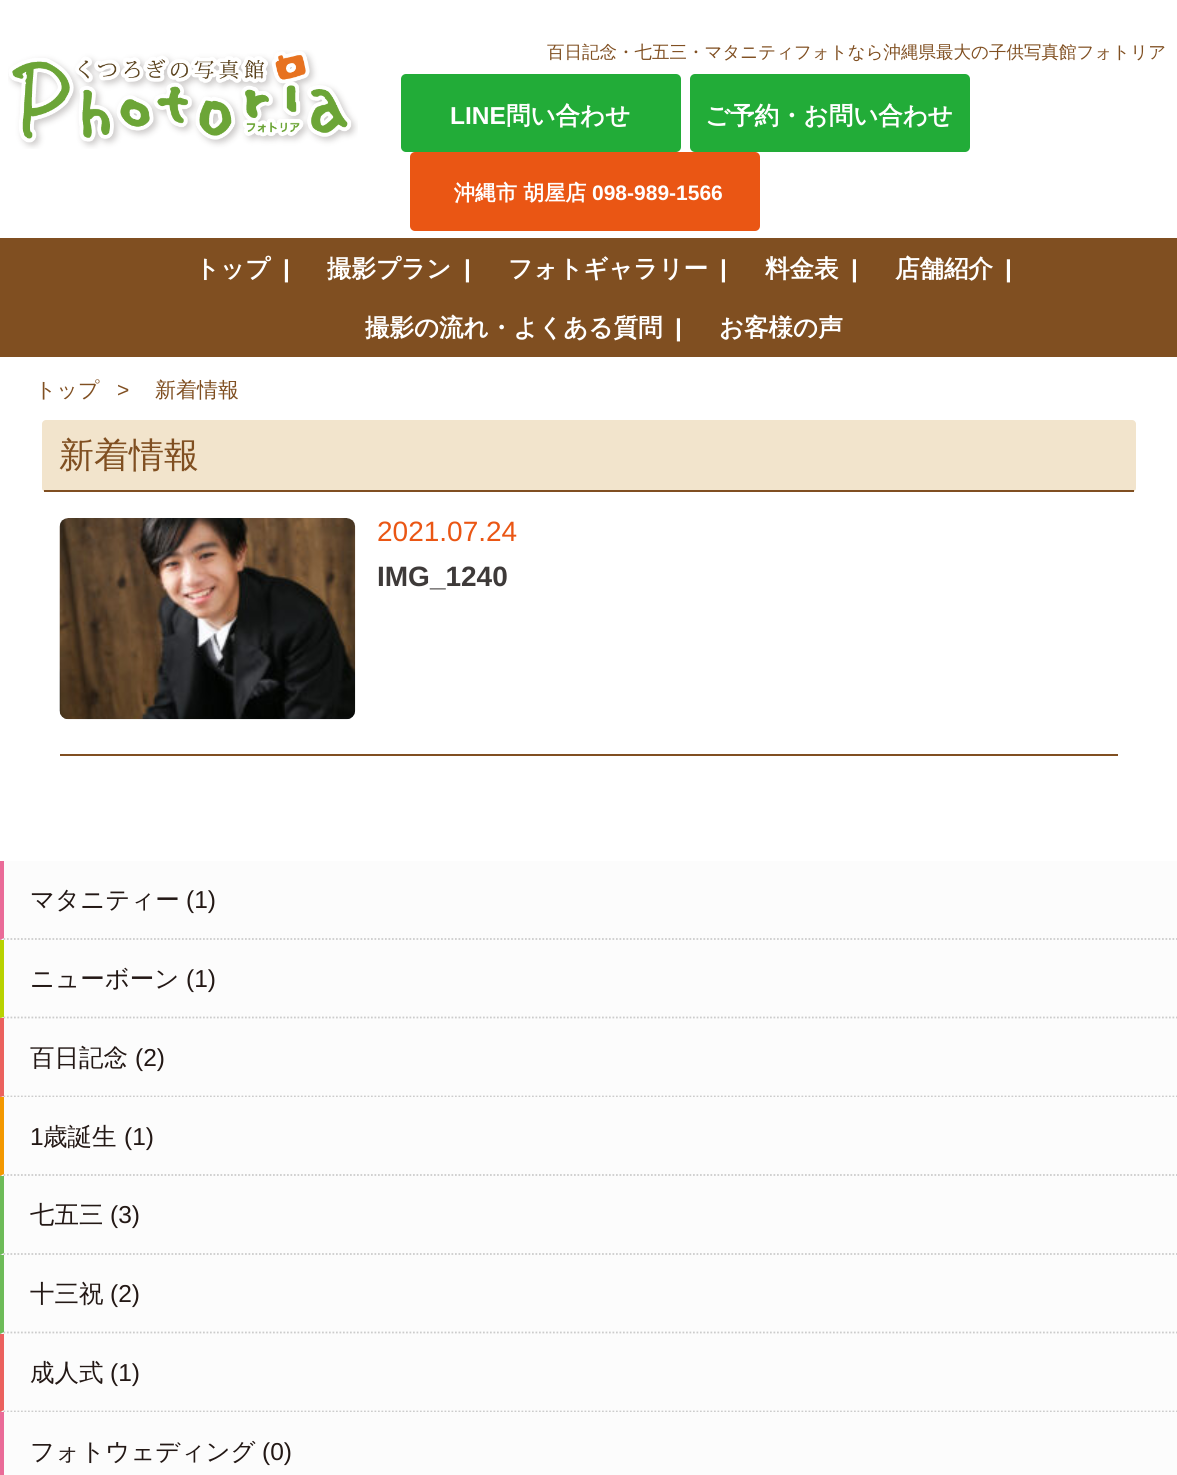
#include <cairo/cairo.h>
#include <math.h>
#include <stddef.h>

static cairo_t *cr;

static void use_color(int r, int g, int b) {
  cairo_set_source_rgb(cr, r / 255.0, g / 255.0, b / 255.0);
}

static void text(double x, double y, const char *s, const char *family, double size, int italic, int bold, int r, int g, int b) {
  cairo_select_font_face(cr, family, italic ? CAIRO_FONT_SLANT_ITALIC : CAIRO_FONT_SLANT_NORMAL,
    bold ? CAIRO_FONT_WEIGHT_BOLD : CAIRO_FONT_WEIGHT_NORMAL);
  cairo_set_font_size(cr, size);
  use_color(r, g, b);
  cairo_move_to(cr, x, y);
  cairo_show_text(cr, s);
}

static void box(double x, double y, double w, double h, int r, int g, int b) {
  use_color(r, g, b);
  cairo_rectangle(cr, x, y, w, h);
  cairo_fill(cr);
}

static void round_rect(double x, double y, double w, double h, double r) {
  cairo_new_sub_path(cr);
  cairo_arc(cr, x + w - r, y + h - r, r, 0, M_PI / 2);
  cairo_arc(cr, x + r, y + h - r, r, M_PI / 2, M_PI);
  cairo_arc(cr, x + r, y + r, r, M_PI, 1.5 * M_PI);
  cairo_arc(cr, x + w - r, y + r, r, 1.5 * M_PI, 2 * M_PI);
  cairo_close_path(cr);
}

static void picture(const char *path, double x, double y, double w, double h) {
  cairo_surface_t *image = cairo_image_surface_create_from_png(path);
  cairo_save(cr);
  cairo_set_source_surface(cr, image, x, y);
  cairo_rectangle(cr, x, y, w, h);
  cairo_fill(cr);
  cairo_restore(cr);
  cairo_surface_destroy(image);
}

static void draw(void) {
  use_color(255, 255, 255);
  cairo_paint(cr);
  picture("img_01.png", 8, 50, 350, 99);
  use_color(34, 172, 56);
  round_rect(401, 74, 280, 78, 5);
  cairo_fill(cr);
  round_rect(690, 74, 280, 78, 5);
  cairo_fill(cr);
  use_color(234, 86, 20);
  round_rect(410, 152, 350, 79, 5);
  cairo_fill(cr);
  box(0, 238, 1177, 119, 128, 79, 33);
  use_color(242, 228, 204);
  round_rect(42, 420, 1094, 72, 4);
  cairo_fill(cr);
  box(44, 490, 1090, 2, 128, 79, 33);
  box(60, 754, 1058, 2, 128, 79, 33);
  picture("img_02.png", 59, 518, 297, 202);
  box(0, 861, 1177, 79, 252, 252, 252);
  cairo_new_path(cr);
  cairo_move_to(cr, 0, 939);
  cairo_line_to(cr, 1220, 939);
  use_color(204, 204, 204);
  cairo_set_line_width(cr, 1.8);
  cairo_set_dash(cr, (double[]){1.75, 1.75}, 2, 0);
  cairo_stroke(cr);
  use_color(234, 107, 152);
  cairo_new_path(cr);
  cairo_move_to(cr, 0, 940);
  cairo_line_to(cr, 0, 861);
  cairo_line_to(cr, 4, 861);
  cairo_line_to(cr, 4, 938);
  cairo_close_path(cr);
  cairo_fill(cr);
  box(1, 940, 1176, 157, 252, 252, 252);
  cairo_new_path(cr);
  cairo_move_to(cr, 0, 1017.5);
  cairo_line_to(cr, 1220, 1017.5);
  use_color(204, 204, 204);
  cairo_stroke(cr);
  use_color(184, 210, 0);
  cairo_new_path(cr);
  cairo_move_to(cr, 0, 1018);
  cairo_line_to(cr, 0, 940);
  cairo_line_to(cr, 4, 940);
  cairo_line_to(cr, 4, 1017);
  cairo_close_path(cr);
  cairo_fill(cr);
  cairo_new_path(cr);
  cairo_move_to(cr, 0, 1096.5);
  cairo_line_to(cr, 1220, 1096.5);
  use_color(204, 204, 204);
  cairo_stroke(cr);
  use_color(235, 97, 94);
  cairo_new_path(cr);
  cairo_move_to(cr, 0, 1097);
  cairo_line_to(cr, 0, 1018);
  cairo_line_to(cr, 4, 1018);
  cairo_line_to(cr, 4, 1096);
  cairo_close_path(cr);
  cairo_fill(cr);
  box(0, 1097, 1177, 237, 252, 252, 252);
  cairo_new_path(cr);
  cairo_move_to(cr, 0, 1175);
  cairo_line_to(cr, 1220, 1175);
  use_color(204, 204, 204);
  cairo_stroke(cr);
  use_color(243, 152, 0);
  cairo_new_path(cr);
  cairo_move_to(cr, 0, 1176);
  cairo_line_to(cr, 0, 1097);
  cairo_line_to(cr, 4, 1097);
  cairo_line_to(cr, 4, 1174);
  cairo_close_path(cr);
  cairo_fill(cr);
  cairo_new_path(cr);
  cairo_move_to(cr, 0, 1254);
  cairo_line_to(cr, 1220, 1254);
  use_color(204, 204, 204);
  cairo_stroke(cr);
  use_color(109, 187, 88);
  cairo_new_path(cr);
  cairo_move_to(cr, 0, 1255);
  cairo_line_to(cr, 0, 1176);
  cairo_line_to(cr, 4, 1176);
  cairo_line_to(cr, 4, 1253);
  cairo_close_path(cr);
  cairo_fill(cr);
  cairo_new_path(cr);
  cairo_move_to(cr, 0, 1332.5);
  cairo_line_to(cr, 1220, 1332.5);
  use_color(204, 204, 204);
  cairo_stroke(cr);
  use_color(109, 187, 88);
  cairo_new_path(cr);
  cairo_move_to(cr, 0, 1334);
  cairo_line_to(cr, 0, 1255);
  cairo_line_to(cr, 4, 1255);
  cairo_line_to(cr, 4, 1332);
  cairo_close_path(cr);
  cairo_fill(cr);
  box(1, 1334, 1176, 78, 252, 252, 252);
  cairo_new_path(cr);
  cairo_move_to(cr, 0, 1411.5);
  cairo_line_to(cr, 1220, 1411.5);
  use_color(204, 204, 204);
  cairo_stroke(cr);
  use_color(235, 97, 94);
  cairo_new_path(cr);
  cairo_move_to(cr, 0, 1412);
  cairo_line_to(cr, 0, 1334);
  cairo_line_to(cr, 4, 1334);
  cairo_line_to(cr, 4, 1410);
  cairo_close_path(cr);
  cairo_fill(cr);
  box(4, 1412, 1173, 63, 252, 252, 252);
  use_color(234, 107, 152);
  cairo_new_path(cr);
  cairo_move_to(cr, 0, 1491);
  cairo_line_to(cr, 0, 1412);
  cairo_line_to(cr, 4, 1412);
  cairo_line_to(cr, 4, 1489);
  cairo_close_path(cr);
  cairo_fill(cr);
  text(547, 58, "百日記念・七五三・マタニティフォトなら沖縄県最大の子供写真館フォトリア", "WenQuanYi Zen Hei Medium", 17.5, 0, 0, 128, 79, 33);
  text(450, 124, "LINE", "Liberation Sans", 24.5, 0, 1, 255, 255, 255);
  text(506, 124, "問い合わせ", "WenQuanYi Zen Hei", 24.5, 0, 1, 255, 255, 255);
  text(705, 124, "ご予約・お問い合わせ", "WenQuanYi Zen Hei", 24.5, 0, 1, 255, 255, 255);
  text(454, 200, "沖縄市 胡屋店", "WenQuanYi Zen Hei", 21, 0, 1, 255, 255, 255);
  text(592, 200, "098-989-1566", "Liberation Sans", 21, 0, 1, 255, 255, 255);
  text(195, 277, "トップ", "WenQuanYi Zen Hei", 24.5, 0, 1, 255, 255, 255);
  text(283, 277, "|", "Liberation Sans", 24.5, 0, 1, 255, 255, 255);
  text(327, 277, "撮影プラン", "WenQuanYi Zen Hei", 24.5, 0, 1, 255, 255, 255);
  text(464, 277, "|", "Liberation Sans", 24.5, 0, 1, 255, 255, 255);
  text(508, 277, "フォトギャラリー", "WenQuanYi Zen Hei", 24.5, 0, 1, 255, 255, 255);
  text(720, 277, "|", "Liberation Sans", 24.5, 0, 1, 255, 255, 255);
  text(765, 277, "料金表", "WenQuanYi Zen Hei", 24.5, 0, 1, 255, 255, 255);
  text(851, 277, "|", "Liberation Sans", 24.5, 0, 1, 255, 255, 255);
  text(895, 277, "店舗紹介", "WenQuanYi Zen Hei", 24.5, 0, 1, 255, 255, 255);
  text(1005, 277, "|", "Liberation Sans", 24.5, 0, 1, 255, 255, 255);
  text(365, 336, "撮影の流れ・よくある質問", "WenQuanYi Zen Hei", 24.5, 0, 1, 255, 255, 255);
  text(675, 336, "|", "Liberation Sans", 24.5, 0, 1, 255, 255, 255);
  text(719, 336, "お客様の声", "WenQuanYi Zen Hei", 24.5, 0, 1, 255, 255, 255);
  text(35, 397, "トップ", "WenQuanYi Zen Hei Medium", 21, 0, 0, 128, 79, 33);
  text(117, 397, ">", "Liberation Sans", 21, 0, 0, 128, 79, 33);
  text(155, 397, "新着情報", "WenQuanYi Zen Hei Medium", 21, 0, 0, 128, 79, 33);
  text(59, 467, "新着情報", "WenQuanYi Zen Hei Medium", 35, 0, 0, 128, 79, 33);
  text(377, 541, "2021.07.24", "Liberation Sans", 28, 0, 0, 234, 86, 20);
  text(377, 586, "IMG_1240", "Liberation Sans", 28, 0, 1, 62, 58, 57);
  text(30, 908, "マタニティー", "WenQuanYi Zen Hei Medium", 24.5, 0, 0, 35, 24, 21);
  text(186, 908, "(1)", "Liberation Sans", 24.5, 0, 0, 35, 24, 21);
  text(30, 987, "ニューボーン", "WenQuanYi Zen Hei Medium", 24.5, 0, 0, 35, 24, 21);
  text(186, 987, "(1)", "Liberation Sans", 24.5, 0, 0, 35, 24, 21);
  text(30, 1066, "百日記念", "WenQuanYi Zen Hei Medium", 24.5, 0, 0, 35, 24, 21);
  text(135, 1066, "(2)", "Liberation Sans", 24.5, 0, 0, 35, 24, 21);
  text(30, 1145, "1", "Liberation Sans", 24.5, 0, 0, 35, 24, 21);
  text(43, 1145, "歳誕生", "WenQuanYi Zen Hei Medium", 24.5, 0, 0, 35, 24, 21);
  text(124, 1145, "(1)", "Liberation Sans", 24.5, 0, 0, 35, 24, 21);
  text(30, 1223, "七五三", "WenQuanYi Zen Hei Medium", 24.5, 0, 0, 35, 24, 21);
  text(110, 1223, "(3)", "Liberation Sans", 24.5, 0, 0, 35, 24, 21);
  text(30, 1302, "十三祝", "WenQuanYi Zen Hei Medium", 24.5, 0, 0, 35, 24, 21);
  text(110, 1302, "(2)", "Liberation Sans", 24.5, 0, 0, 35, 24, 21);
  text(30, 1381, "成人式", "WenQuanYi Zen Hei Medium", 24.5, 0, 0, 35, 24, 21);
  text(110, 1381, "(1)", "Liberation Sans", 24.5, 0, 0, 35, 24, 21);
  text(30, 1460, "フォトウェディング", "WenQuanYi Zen Hei Medium", 24.5, 0, 0, 35, 24, 21);
  text(262, 1460, "(0)", "Liberation Sans", 24.5, 0, 0, 35, 24, 21);
}

int main(void) {
  cairo_surface_t *surface = cairo_image_surface_create(CAIRO_FORMAT_RGB24, 1177, 1475);
  cr = cairo_create(surface);
  cairo_font_options_t *options = cairo_font_options_create();
  cairo_font_options_set_hint_metrics(options, CAIRO_HINT_METRICS_OFF);
  cairo_font_options_set_hint_style(options, CAIRO_HINT_STYLE_NONE);
  cairo_set_font_options(cr, options);
  cairo_set_miter_limit(cr, 4);
  draw();
  cairo_surface_write_to_png(surface, "out.png");
  cairo_font_options_destroy(options);
  cairo_destroy(cr);
  cairo_surface_destroy(surface);
  return 0;
}
